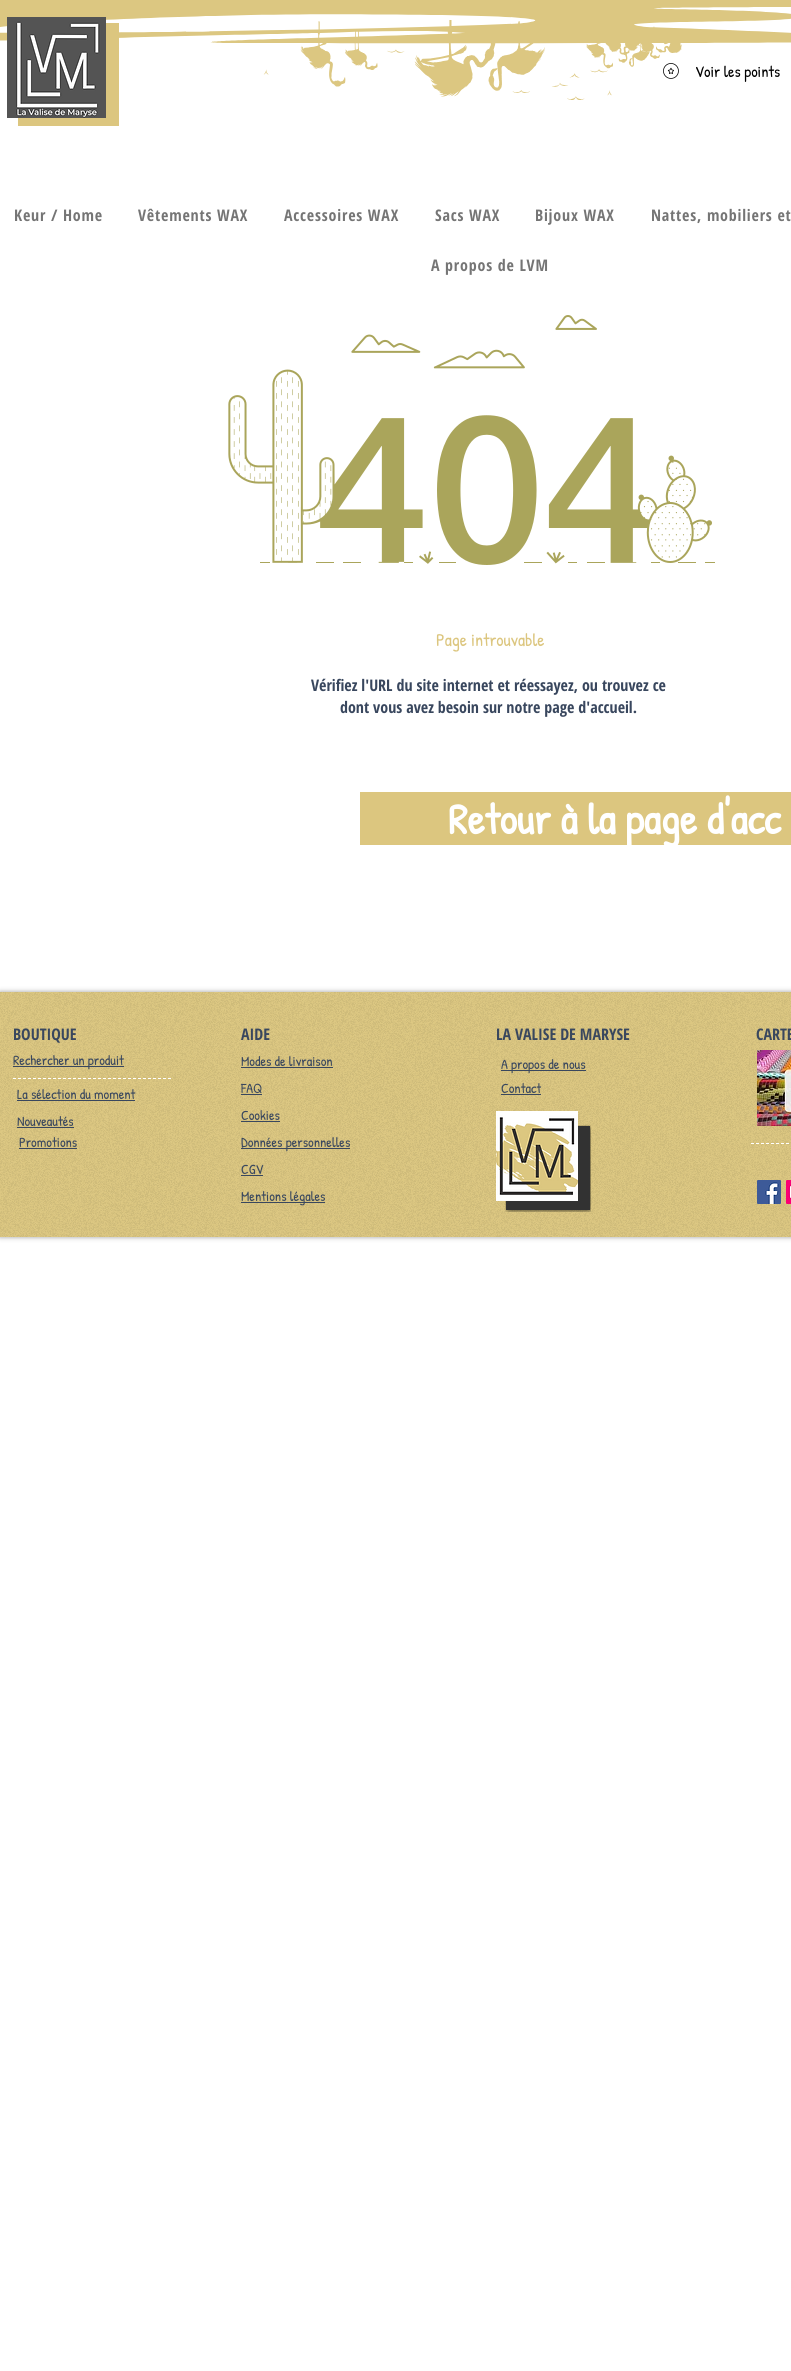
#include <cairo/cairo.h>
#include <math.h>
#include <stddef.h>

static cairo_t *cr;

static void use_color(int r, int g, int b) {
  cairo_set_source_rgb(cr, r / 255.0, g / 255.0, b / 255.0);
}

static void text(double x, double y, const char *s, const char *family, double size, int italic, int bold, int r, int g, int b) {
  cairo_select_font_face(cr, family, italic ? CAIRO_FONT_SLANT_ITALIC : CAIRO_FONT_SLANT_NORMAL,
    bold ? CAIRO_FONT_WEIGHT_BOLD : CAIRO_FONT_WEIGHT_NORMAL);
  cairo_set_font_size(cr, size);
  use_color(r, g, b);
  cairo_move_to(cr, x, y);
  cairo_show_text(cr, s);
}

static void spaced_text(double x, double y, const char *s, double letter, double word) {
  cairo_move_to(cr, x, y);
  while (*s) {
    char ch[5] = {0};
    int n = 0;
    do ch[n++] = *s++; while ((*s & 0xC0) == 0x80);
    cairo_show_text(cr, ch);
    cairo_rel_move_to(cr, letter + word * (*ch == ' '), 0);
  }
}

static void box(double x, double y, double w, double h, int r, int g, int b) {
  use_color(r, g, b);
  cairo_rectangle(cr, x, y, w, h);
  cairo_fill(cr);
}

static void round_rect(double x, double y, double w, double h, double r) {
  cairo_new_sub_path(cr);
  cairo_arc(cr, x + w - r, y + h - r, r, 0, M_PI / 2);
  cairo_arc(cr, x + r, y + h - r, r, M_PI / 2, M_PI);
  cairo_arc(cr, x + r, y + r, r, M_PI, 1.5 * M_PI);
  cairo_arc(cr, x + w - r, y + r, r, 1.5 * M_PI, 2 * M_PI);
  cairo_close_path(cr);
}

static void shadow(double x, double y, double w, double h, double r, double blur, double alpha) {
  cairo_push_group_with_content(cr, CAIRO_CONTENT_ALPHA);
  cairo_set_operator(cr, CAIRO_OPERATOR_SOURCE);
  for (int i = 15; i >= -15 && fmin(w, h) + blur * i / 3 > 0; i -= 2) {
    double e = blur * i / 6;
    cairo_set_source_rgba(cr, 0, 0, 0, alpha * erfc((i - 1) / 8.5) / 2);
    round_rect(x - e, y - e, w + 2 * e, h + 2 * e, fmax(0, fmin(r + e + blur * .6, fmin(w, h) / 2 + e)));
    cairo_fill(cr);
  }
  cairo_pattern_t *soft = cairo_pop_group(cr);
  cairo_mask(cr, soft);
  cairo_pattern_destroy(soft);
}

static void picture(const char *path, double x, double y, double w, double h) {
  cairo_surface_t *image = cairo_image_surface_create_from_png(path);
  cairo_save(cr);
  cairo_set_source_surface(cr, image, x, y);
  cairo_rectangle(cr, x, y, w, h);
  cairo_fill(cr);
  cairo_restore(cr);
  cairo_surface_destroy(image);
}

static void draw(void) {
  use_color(255, 255, 255);
  cairo_paint(cr);
  picture("img_01.png", 0, 0, 791, 100);
  box(18, 23, 101, 103, 220, 198, 127);
  picture("img_02.png", 7, 17, 99, 101);
  picture("img_03.png", 663, 63, 16, 16);
  picture("img_04.png", 228, 315, 487, 250);
  box(360, 792, 431, 53, 220, 198, 127);
  use_color(117, 117, 117);
  shadow(0, 992, 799, 245, 0, 2.5, 0.7);
  box(0, 992, 791, 245, 220, 199, 129);
  picture("img_05.png", 0, 992, 791, 245);
  box(13, 1066, 111, 1, 57, 71, 94);
  box(241, 1067, 92, 1, 57, 71, 94);
  box(501, 1070, 85, 1, 57, 71, 94);
  picture("img_06.png", 757, 1050, 34, 76);
  cairo_new_path(cr);
  cairo_move_to(cr, 13, 1078.5);
  cairo_line_to(cr, 171, 1078.5);
  use_color(255, 255, 255);
  cairo_set_line_width(cr, 1);
  cairo_set_dash(cr, (double[]){3, 2}, 2, 0);
  cairo_stroke(cr);
  box(17, 1100, 118, 1, 57, 71, 94);
  box(241, 1094, 21, 1, 57, 71, 94);
  box(501, 1094, 40, 1, 57, 71, 94);
  box(17, 1127, 57, 1, 57, 71, 94);
  box(241, 1121, 39, 1, 57, 71, 94);
  picture("img_08.png", 505, 1125, 86, 87);
  picture("img_07.png", 496, 1111, 82, 90);
  box(19, 1148, 58, 1, 57, 71, 94);
  box(241, 1148, 109, 1, 57, 71, 94);
  cairo_new_path(cr);
  cairo_move_to(cr, 751, 1143.5);
  cairo_line_to(cr, 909, 1143.5);
  use_color(255, 255, 255);
  cairo_stroke(cr);
  box(241, 1175, 22, 1, 57, 71, 94);
  box(241, 1202, 84, 1, 57, 71, 94);
  picture("img_09.png", 757, 1180, 24, 24);
  picture("img_10.png", 786, 1180, 5, 24);
  text(695, 77, "Voir les points", "Patrick Hand", 16, 0, 0, 0, 0, 0);
  cairo_select_font_face(cr, "Open Sans Condensed", CAIRO_FONT_SLANT_NORMAL, CAIRO_FONT_WEIGHT_BOLD);
  use_color(117, 117, 117);
  spaced_text(14, 221, "Keur / Home", 0.8, 0);
  spaced_text(138, 221, "Vêtements WAX", 0.8, 0);
  spaced_text(284, 221, "Accessoires WAX", 0.8, 0);
  spaced_text(435, 221, "Sacs WAX", 0.8, 0);
  spaced_text(535, 221, "Bijoux WAX", 0.8, 0);
  spaced_text(651, 221, "Nattes, mobiliers et", 0.8, 0);
  spaced_text(431, 271, "A propos de LVM", 0.8, 0);
  text(436, 646, "Page introuvable", "Patrick Hand", 18, 0, 0, 220, 198, 127);
  text(311, 691, "Vérifiez l'URL du site internet et réessayez, ou trouvez ce", "Open Sans Condensed", 16, 0, 1, 57, 71, 94);
  text(340, 713, "dont vous avez besoin sur notre page d'accueil.", "Open Sans Condensed", 16, 0, 1, 57, 71, 94);
  text(448, 834, "Retour à la page d'acc", "Patrick Hand", 43, 0, 1, 255, 255, 255);
  text(13, 1040, "BOUTIQUE", "Open Sans Condensed", 16, 0, 1, 57, 71, 94);
  text(241, 1040, "AIDE", "Open Sans Condensed", 16, 0, 1, 57, 71, 94);
  text(496, 1040, "LA VALISE DE MARYSE", "Open Sans Condensed", 16, 0, 1, 57, 71, 94);
  text(756, 1040, "CARTE", "Open Sans Condensed", 16, 0, 1, 57, 71, 94);
  text(13, 1065, "Rechercher un produit", "Patrick Hand", 14, 0, 0, 57, 71, 94);
  text(241, 1066, "Modes de livraison", "Patrick Hand", 14, 0, 0, 57, 71, 94);
  text(501, 1069, "A propos de nous", "Patrick Hand", 14, 0, 0, 57, 71, 94);
  text(17, 1099, "La sélection du moment", "Patrick Hand", 14, 0, 0, 57, 71, 94);
  text(241, 1093, "FAQ", "Patrick Hand", 14, 0, 0, 57, 71, 94);
  text(501, 1093, "Contact", "Patrick Hand", 14, 0, 0, 57, 71, 94);
  text(17, 1126, "Nouveautés", "Patrick Hand", 14, 0, 0, 57, 71, 94);
  text(241, 1120, "Cookies", "Patrick Hand", 14, 0, 0, 57, 71, 94);
  text(19, 1147, "Promotions", "Patrick Hand", 14, 0, 0, 57, 71, 94);
  text(241, 1147, "Données personnelles", "Patrick Hand", 14, 0, 0, 57, 71, 94);
  text(241, 1174, "CGV", "Patrick Hand", 14, 0, 0, 57, 71, 94);
  text(241, 1201, "Mentions légales", "Patrick Hand", 14, 0, 0, 57, 71, 94);
}

int main(void) {
  cairo_surface_t *surface = cairo_image_surface_create(CAIRO_FORMAT_RGB24, 791, 2371);
  cr = cairo_create(surface);
  cairo_font_options_t *options = cairo_font_options_create();
  cairo_font_options_set_hint_metrics(options, CAIRO_HINT_METRICS_OFF);
  cairo_font_options_set_hint_style(options, CAIRO_HINT_STYLE_NONE);
  cairo_set_font_options(cr, options);
  cairo_set_miter_limit(cr, 4);
  draw();
  cairo_surface_write_to_png(surface, "out.png");
  cairo_font_options_destroy(options);
  cairo_destroy(cr);
  cairo_surface_destroy(surface);
  return 0;
}
